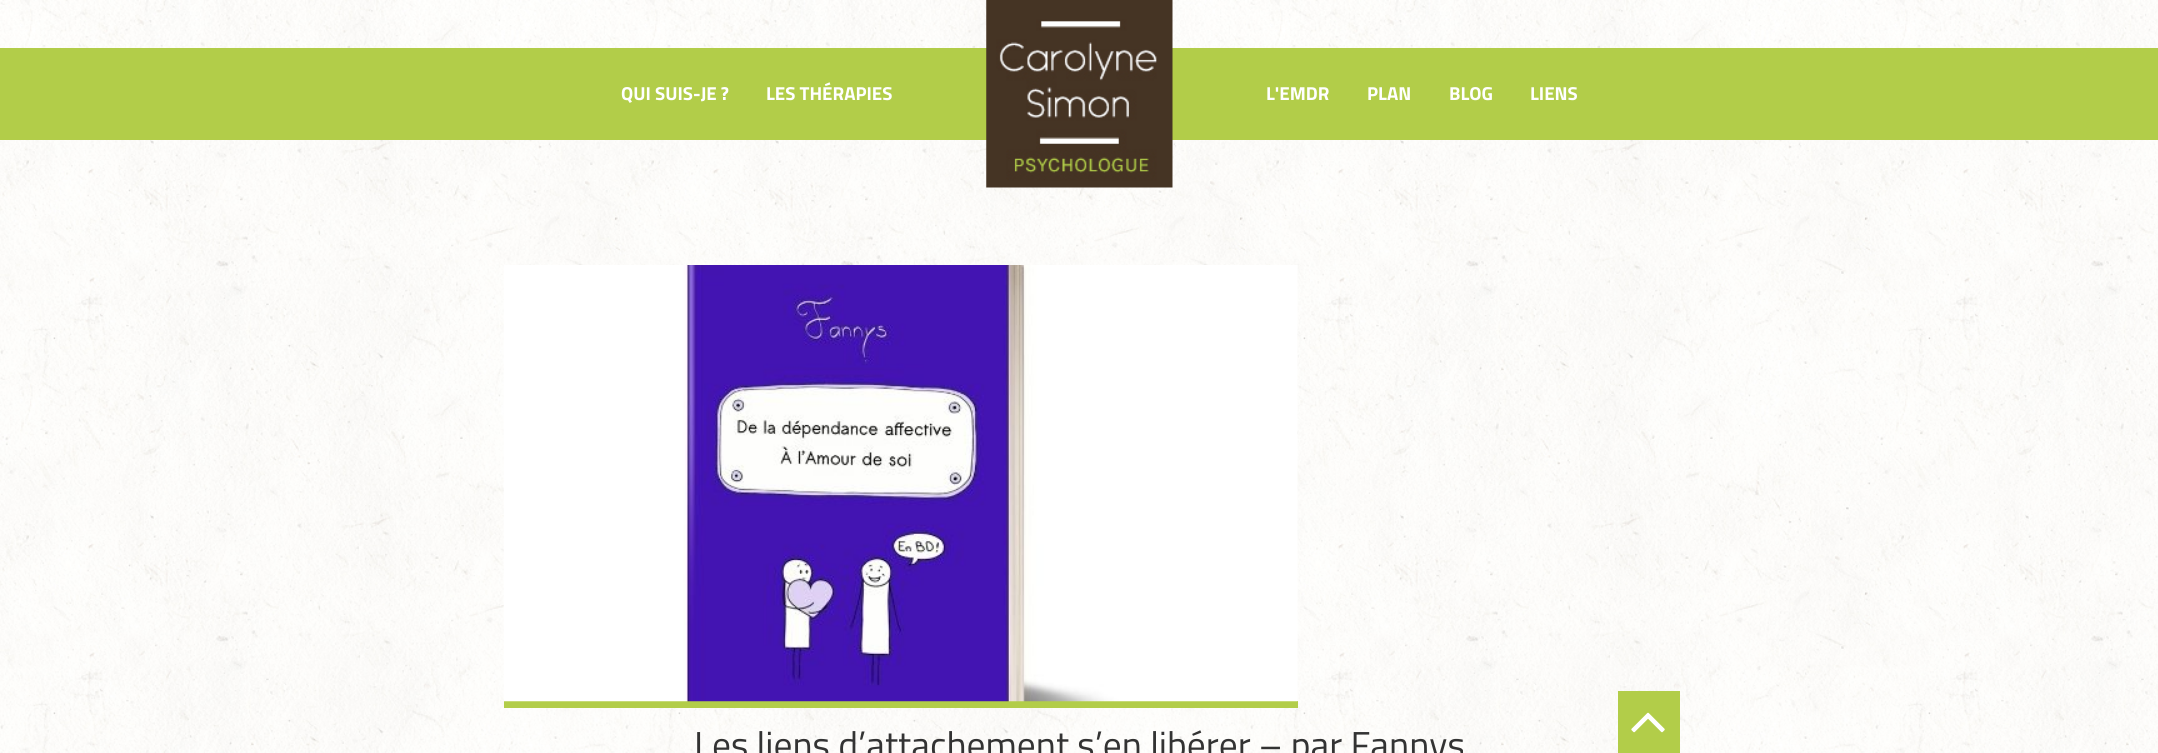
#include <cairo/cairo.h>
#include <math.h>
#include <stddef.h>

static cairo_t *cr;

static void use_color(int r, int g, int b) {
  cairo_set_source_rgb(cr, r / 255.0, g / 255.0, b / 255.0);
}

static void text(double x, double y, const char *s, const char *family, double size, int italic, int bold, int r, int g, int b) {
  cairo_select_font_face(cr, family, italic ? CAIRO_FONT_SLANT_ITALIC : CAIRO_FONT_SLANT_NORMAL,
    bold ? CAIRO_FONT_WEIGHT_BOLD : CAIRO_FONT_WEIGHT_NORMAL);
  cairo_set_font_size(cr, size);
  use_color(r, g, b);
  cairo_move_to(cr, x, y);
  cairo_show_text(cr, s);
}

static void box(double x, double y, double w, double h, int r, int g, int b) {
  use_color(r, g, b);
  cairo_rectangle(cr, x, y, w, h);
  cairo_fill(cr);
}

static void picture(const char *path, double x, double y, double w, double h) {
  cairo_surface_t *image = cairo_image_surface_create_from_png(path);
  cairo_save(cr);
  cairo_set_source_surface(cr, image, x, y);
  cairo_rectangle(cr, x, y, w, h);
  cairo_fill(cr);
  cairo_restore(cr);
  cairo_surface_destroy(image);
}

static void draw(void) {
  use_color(255, 255, 255);
  cairo_paint(cr);
  picture("img_01.png", 0, 140, 2158, 613);
  picture("img_02.png", 0, 0, 2158, 48);
  box(0, 48, 2158, 92, 178, 205, 73);
  picture("img_03.png", 986, 0, 187, 188);
  box(504, 701, 794, 7, 178, 205, 73);
  picture("img_04.png", 503, 265, 795, 437);
  box(1618, 691, 62, 62, 178, 205, 73);
  picture("img_05.png", 1631, 712, 34, 21);
  text(621, 100, "QUI SUIS-JE ?", "Titillium Web", 18.75, 0, 1, 255, 255, 255);
  text(766, 100, "LES THÉRAPIES", "Titillium Web", 18.75, 0, 1, 255, 255, 255);
  text(1266, 100, "L'EMDR", "Titillium Web", 18.75, 0, 1, 255, 255, 255);
  text(1367, 100, "PLAN", "Titillium Web", 18.75, 0, 1, 255, 255, 255);
  text(1449, 100, "BLOG", "Titillium Web", 18.75, 0, 1, 255, 255, 255);
  text(1530, 100, "LIENS", "Titillium Web", 18.75, 0, 1, 255, 255, 255);
  text(694, 758, "Les liens d’attachement s’en libérer – par Fannys", "Titillium Web", 37.5, 0, 0, 51, 51, 51);
}

int main(void) {
  cairo_surface_t *surface = cairo_image_surface_create(CAIRO_FORMAT_RGB24, 2158, 753);
  cr = cairo_create(surface);
  cairo_font_options_t *options = cairo_font_options_create();
  cairo_font_options_set_hint_metrics(options, CAIRO_HINT_METRICS_OFF);
  cairo_font_options_set_hint_style(options, CAIRO_HINT_STYLE_NONE);
  cairo_set_font_options(cr, options);
  cairo_set_miter_limit(cr, 4);
  draw();
  cairo_surface_write_to_png(surface, "out.png");
  cairo_font_options_destroy(options);
  cairo_destroy(cr);
  cairo_surface_destroy(surface);
  return 0;
}
